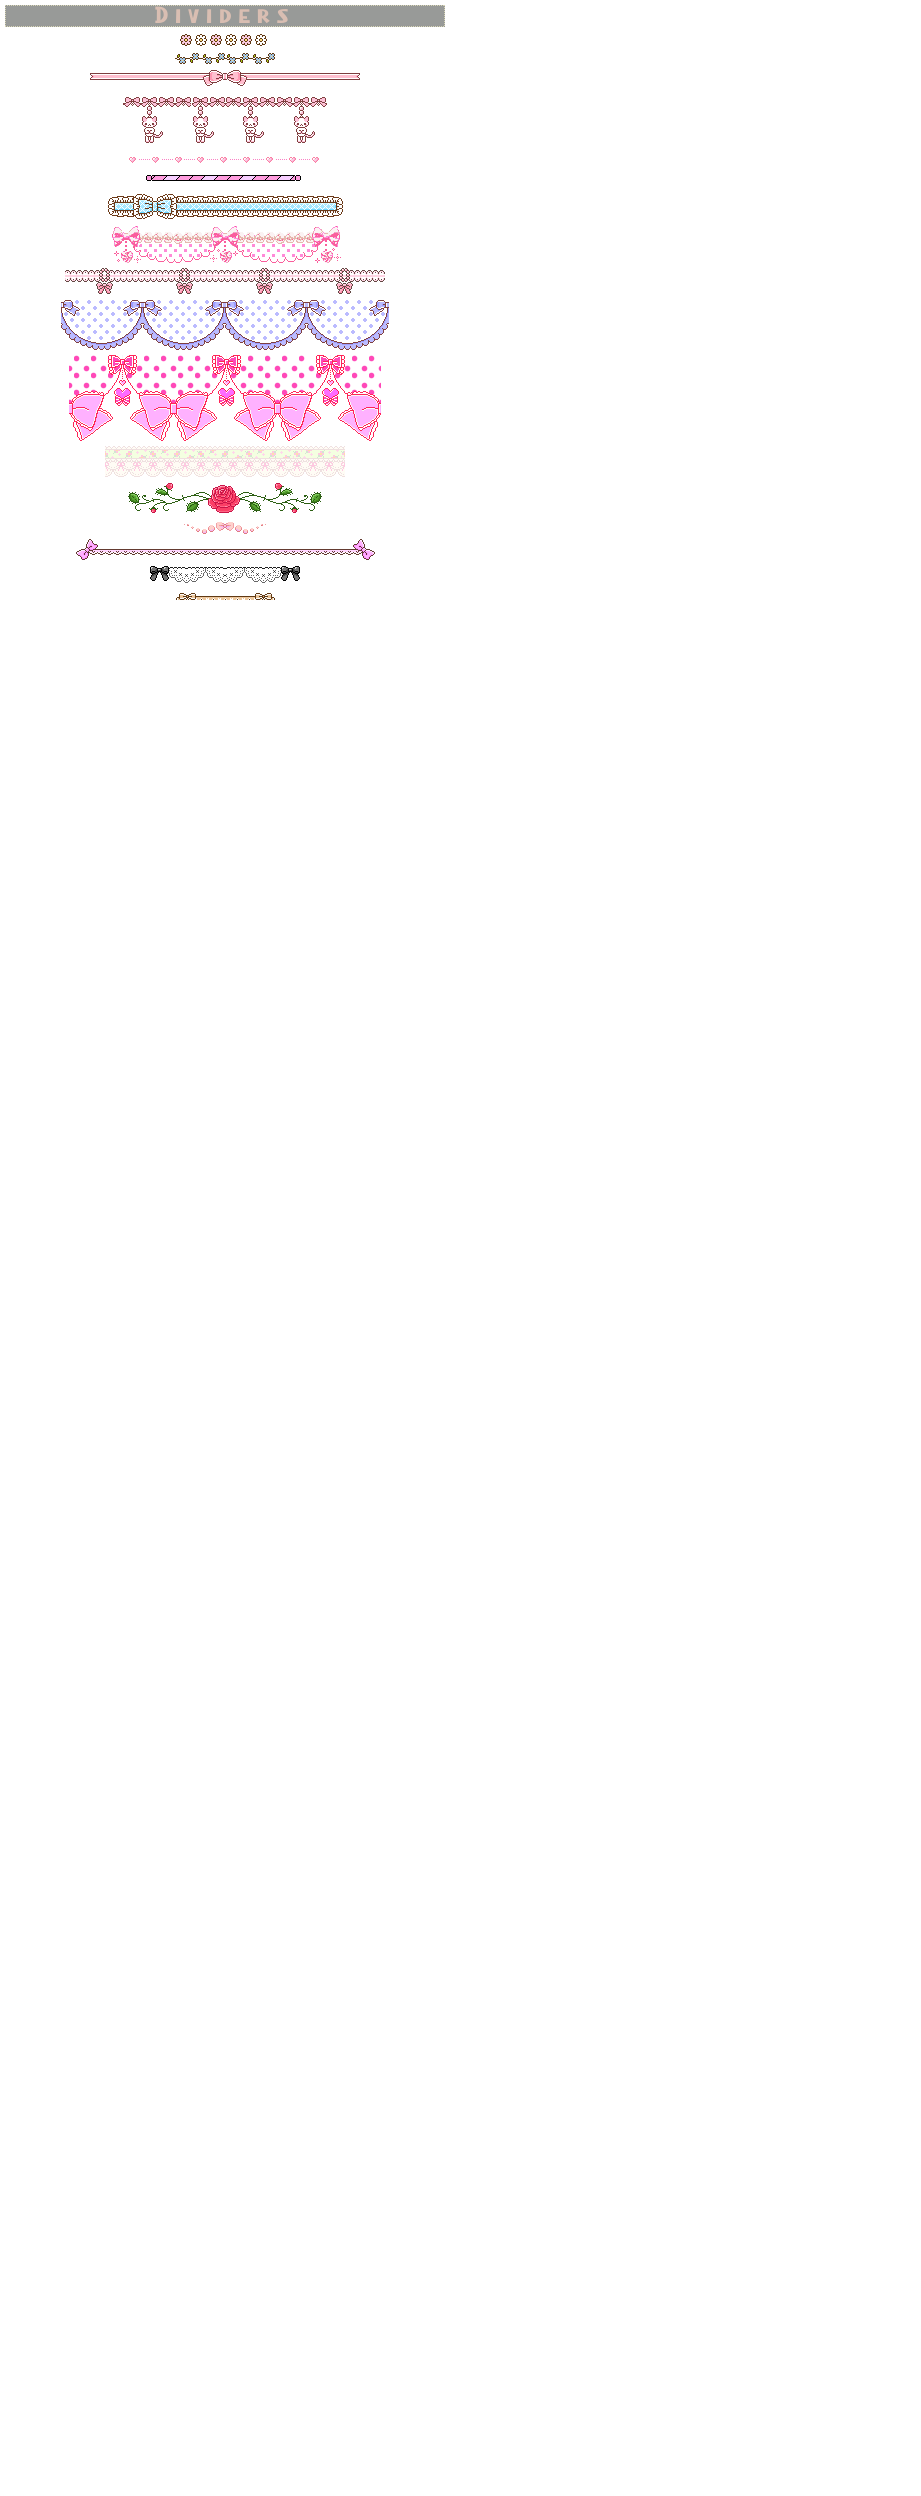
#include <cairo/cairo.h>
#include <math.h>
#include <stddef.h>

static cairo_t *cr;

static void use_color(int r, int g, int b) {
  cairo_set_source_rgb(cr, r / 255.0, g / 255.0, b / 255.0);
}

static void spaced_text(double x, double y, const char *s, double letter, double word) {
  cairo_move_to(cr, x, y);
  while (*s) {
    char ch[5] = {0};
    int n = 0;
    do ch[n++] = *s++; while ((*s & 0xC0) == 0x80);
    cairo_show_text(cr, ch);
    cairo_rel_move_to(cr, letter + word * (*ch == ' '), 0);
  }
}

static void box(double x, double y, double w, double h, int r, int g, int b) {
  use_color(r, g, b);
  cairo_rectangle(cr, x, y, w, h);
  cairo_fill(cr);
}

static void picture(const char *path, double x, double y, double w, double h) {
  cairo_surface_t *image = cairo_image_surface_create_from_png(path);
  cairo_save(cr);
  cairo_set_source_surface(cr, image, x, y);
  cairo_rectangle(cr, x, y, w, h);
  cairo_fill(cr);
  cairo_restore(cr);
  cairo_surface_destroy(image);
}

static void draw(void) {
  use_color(255, 255, 255);
  cairo_paint(cr);
  box(5, 5, 440, 22, 152, 154, 152);
  cairo_new_path(cr);
  cairo_move_to(cr, 5, 5.5);
  cairo_line_to(cr, 445, 5.5);
  use_color(216, 213, 182);
  cairo_set_line_width(cr, 1);
  cairo_set_dash(cr, (double[]){1, 1}, 2, 0);
  cairo_stroke(cr);
  cairo_new_path(cr);
  cairo_move_to(cr, 444.5, 5);
  cairo_line_to(cr, 444.5, 27);
  cairo_stroke(cr);
  cairo_new_path(cr);
  cairo_move_to(cr, 5, 26.5);
  cairo_line_to(cr, 445, 26.5);
  cairo_stroke(cr);
  cairo_new_path(cr);
  cairo_move_to(cr, 5.5, 5);
  cairo_line_to(cr, 5.5, 27);
  cairo_stroke(cr);
  picture("img_01.png", 180, 34, 87, 12);
  picture("img_02.png", 175, 53, 100, 11);
  picture("img_03.png", 90, 70, 270, 16);
  picture("img_04.png", 123, 97, 204, 46);
  picture("img_05.png", 129, 157, 190, 6);
  picture("img_06.png", 146, 175, 155, 6);
  picture("img_07.png", 108, 194, 235, 25);
  picture("img_08.png", 112, 226, 229, 37);
  picture("img_09.png", 65, 268, 80, 26);
  picture("img_09.png", 145, 268, 80, 26);
  picture("img_09.png", 225, 268, 80, 26);
  picture("img_09.png", 305, 268, 80, 26);
  picture("img_10.png", 61, 300, 164, 50);
  picture("img_10.png", 225, 300, 164, 50);
  picture("img_11.png", 69, 355, 104, 86);
  picture("img_11.png", 173, 355, 104, 86);
  picture("img_11.png", 277, 355, 104, 86);
  picture("img_12.png", 105, 446, 48, 31);
  picture("img_12.png", 153, 446, 48, 31);
  picture("img_12.png", 201, 446, 48, 31);
  picture("img_12.png", 249, 446, 48, 31);
  picture("img_12.png", 297, 446, 48, 31);
  picture("img_13.png", 128, 483, 194, 30);
  picture("img_14.png", 184, 522, 82, 12);
  picture("img_15.png", 76, 539, 299, 21);
  picture("img_16.png", 150, 566, 150, 17);
  picture("img_17.png", 176, 593, 99, 7);
  cairo_select_font_face(cr, "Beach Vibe", CAIRO_FONT_SLANT_NORMAL, CAIRO_FONT_WEIGHT_BOLD);
  cairo_set_font_size(cr, 27);
  use_color(217, 190, 178);
  spaced_text(155, 23, "Dividers", 8, 0);
}

int main(void) {
  cairo_surface_t *surface = cairo_image_surface_create(CAIRO_FORMAT_RGB24, 921, 2496);
  cr = cairo_create(surface);
  cairo_font_options_t *options = cairo_font_options_create();
  cairo_font_options_set_hint_metrics(options, CAIRO_HINT_METRICS_OFF);
  cairo_font_options_set_hint_style(options, CAIRO_HINT_STYLE_NONE);
  cairo_set_font_options(cr, options);
  cairo_set_miter_limit(cr, 4);
  draw();
  cairo_surface_write_to_png(surface, "out.png");
  cairo_font_options_destroy(options);
  cairo_destroy(cr);
  cairo_surface_destroy(surface);
  return 0;
}
